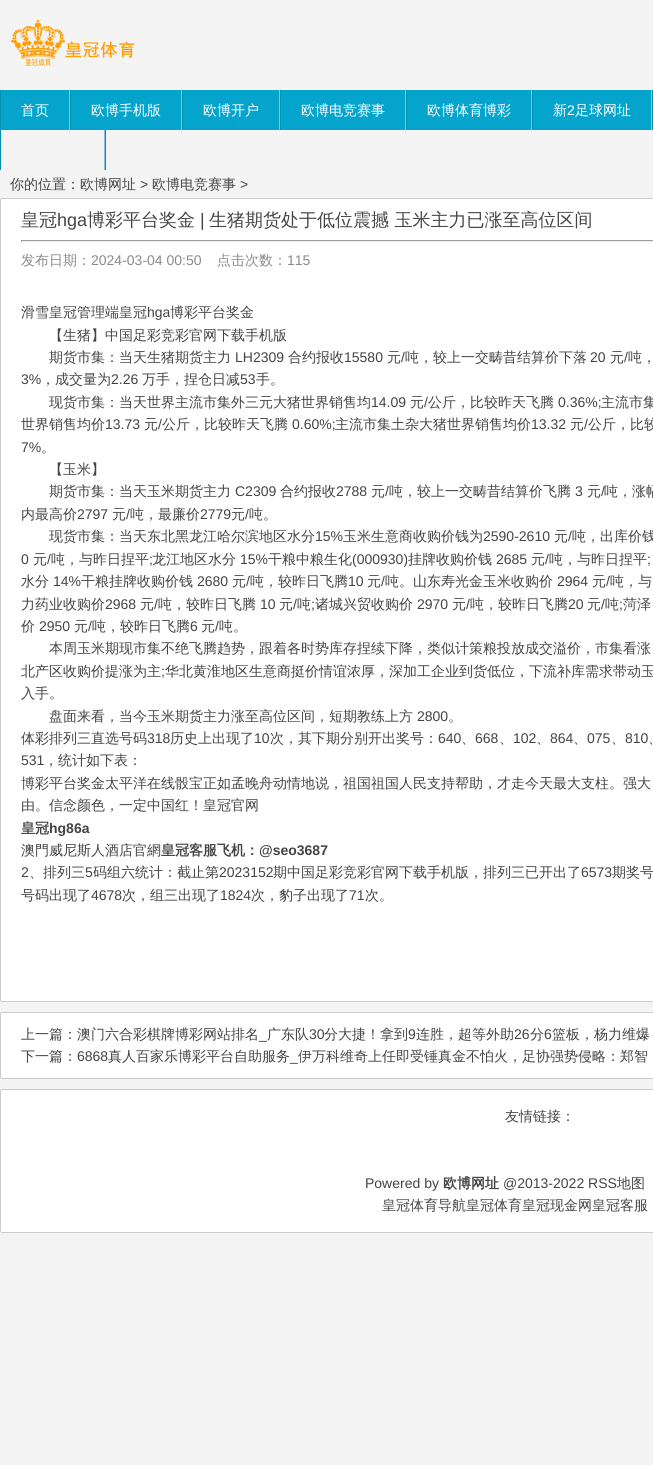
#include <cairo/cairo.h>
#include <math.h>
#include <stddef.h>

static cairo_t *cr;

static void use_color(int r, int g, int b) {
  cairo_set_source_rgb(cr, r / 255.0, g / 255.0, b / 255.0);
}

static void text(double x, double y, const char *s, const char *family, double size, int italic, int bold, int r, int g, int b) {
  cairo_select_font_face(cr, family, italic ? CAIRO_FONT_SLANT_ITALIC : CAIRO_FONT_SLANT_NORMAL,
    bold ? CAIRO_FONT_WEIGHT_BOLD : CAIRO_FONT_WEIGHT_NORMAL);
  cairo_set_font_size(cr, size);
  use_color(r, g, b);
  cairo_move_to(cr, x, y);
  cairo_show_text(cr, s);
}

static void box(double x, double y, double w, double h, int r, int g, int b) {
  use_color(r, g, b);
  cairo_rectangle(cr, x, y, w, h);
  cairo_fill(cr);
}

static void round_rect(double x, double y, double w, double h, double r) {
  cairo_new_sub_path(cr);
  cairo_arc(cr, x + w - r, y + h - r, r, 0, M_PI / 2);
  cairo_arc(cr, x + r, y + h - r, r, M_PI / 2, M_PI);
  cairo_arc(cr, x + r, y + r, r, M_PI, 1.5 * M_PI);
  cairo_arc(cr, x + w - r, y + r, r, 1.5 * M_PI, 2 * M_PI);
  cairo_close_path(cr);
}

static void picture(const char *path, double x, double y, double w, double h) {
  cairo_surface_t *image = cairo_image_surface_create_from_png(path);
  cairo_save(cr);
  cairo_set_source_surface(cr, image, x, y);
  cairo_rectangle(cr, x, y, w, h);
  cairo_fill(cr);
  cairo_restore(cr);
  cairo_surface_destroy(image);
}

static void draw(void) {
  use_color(244, 244, 244);
  cairo_paint(cr);
  picture("img_01.png", 11, 20, 124, 46);
  box(1, 90, 650, 40, 4, 164, 204);
  box(69, 90, 1, 40, 130, 193, 229);
  box(0, 90, 1, 80, 0, 142, 178);
  box(181, 90, 1, 40, 130, 193, 229);
  box(70, 90, 1, 40, 0, 142, 178);
  box(279, 90, 1, 40, 130, 193, 229);
  box(182, 90, 1, 40, 0, 142, 178);
  box(405, 90, 1, 40, 130, 193, 229);
  box(280, 90, 1, 40, 0, 142, 178);
  box(531, 90, 1, 40, 130, 193, 229);
  box(406, 90, 1, 40, 0, 142, 178);
  box(651, 90, 1, 40, 130, 193, 229);
  box(532, 90, 1, 40, 0, 142, 178);
  box(652, 90, 1, 40, 0, 142, 178);
  box(104, 130, 1, 40, 130, 193, 229);
  box(105, 130, 1, 40, 0, 142, 178);
  use_color(255, 255, 255);
  round_rect(0.5, 198.5, 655, 803, 1.5);
  cairo_fill_preserve(cr);
  use_color(204, 204, 204);
  cairo_set_line_width(cr, 1);
  cairo_stroke(cr);
  box(21, 240, 632, 1, 159, 159, 159);
  box(21, 241, 632, 1, 238, 238, 238);
  box(21, 240, 1, 2, 159, 159, 159);
  use_color(255, 255, 255);
  round_rect(0.5, 1012.5, 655, 66, 1.5);
  cairo_fill_preserve(cr);
  use_color(204, 204, 204);
  cairo_stroke(cr);
  use_color(255, 255, 255);
  round_rect(0.5, 1089.5, 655, 143, 1.5);
  cairo_fill_preserve(cr);
  use_color(204, 204, 204);
  cairo_stroke(cr);
  text(21, 115, "首页", "WenQuanYi Zen Hei Medium", 14, 0, 0, 255, 255, 255);
  text(91, 115, "欧博手机版", "WenQuanYi Zen Hei Medium", 14, 0, 0, 255, 255, 255);
  text(203, 115, "欧博开户", "WenQuanYi Zen Hei Medium", 14, 0, 0, 255, 255, 255);
  text(301, 115, "欧博电竞赛事", "WenQuanYi Zen Hei Medium", 14, 0, 0, 255, 255, 255);
  text(427, 115, "欧博体育博彩", "WenQuanYi Zen Hei Medium", 14, 0, 0, 255, 255, 255);
  text(553, 115, "新", "WenQuanYi Zen Hei Medium", 14, 0, 0, 255, 255, 255);
  text(567, 115, "2", "Liberation Sans", 14, 0, 0, 255, 255, 255);
  text(575, 115, "足球网址", "WenQuanYi Zen Hei Medium", 14, 0, 0, 255, 255, 255);
  text(10, 189, "你的位置：欧博网址", "WenQuanYi Zen Hei Medium", 14, 0, 0, 68, 68, 68);
  text(140, 189, ">", "Liberation Sans", 14, 0, 0, 68, 68, 68);
  text(152, 189, "欧博电竞赛事", "WenQuanYi Zen Hei Medium", 14, 0, 0, 68, 68, 68);
  text(240, 189, ">", "Liberation Sans", 14, 0, 0, 68, 68, 68);
  text(21, 226, "皇冠", "WenQuanYi Zen Hei Medium", 18, 0, 0, 68, 68, 68);
  text(57, 226, "hga", "Liberation Sans", 18, 0, 0, 68, 68, 68);
  text(87, 226, "博彩平台奖金", "WenQuanYi Zen Hei Medium", 18, 0, 0, 68, 68, 68);
  text(200, 226, "|", "Liberation Sans", 18, 0, 0, 68, 68, 68);
  text(209, 226, "生猪期货处于低位震撼 玉米主力已涨至高位区间", "WenQuanYi Zen Hei Medium", 18, 0, 0, 68, 68, 68);
  text(21, 265, "发布日期：", "WenQuanYi Zen Hei Medium", 14, 0, 0, 139, 139, 139);
  text(91, 265, "2024-03-04 00:50", "Liberation Sans", 14, 0, 0, 139, 139, 139);
  text(217, 265, "点击次数：", "WenQuanYi Zen Hei Medium", 14, 0, 0, 139, 139, 139);
  text(287, 265, "115", "Liberation Sans", 14, 0, 0, 139, 139, 139);
  text(21, 317, "滑雪皇冠管理端皇冠", "WenQuanYi Zen Hei Medium", 14, 0, 0, 68, 68, 68);
  text(147, 317, "hga", "Liberation Sans", 14, 0, 0, 68, 68, 68);
  text(170, 317, "博彩平台奖金", "WenQuanYi Zen Hei Medium", 14, 0, 0, 68, 68, 68);
  text(49, 340, "【生猪】中国足彩竞彩官网下载手机版", "WenQuanYi Zen Hei Medium", 14, 0, 0, 68, 68, 68);
  text(49, 362, "期货市集：当天生猪期货主力", "WenQuanYi Zen Hei Medium", 14, 0, 0, 68, 68, 68);
  text(235, 362, "LH2309", "Liberation Sans", 14, 0, 0, 68, 68, 68);
  text(288, 362, "合约报收", "WenQuanYi Zen Hei Medium", 14, 0, 0, 68, 68, 68);
  text(344, 362, "15580", "Liberation Sans", 14, 0, 0, 68, 68, 68);
  text(387, 362, "元", "WenQuanYi Zen Hei Medium", 14, 0, 0, 68, 68, 68);
  text(401, 362, "/", "Liberation Sans", 14, 0, 0, 68, 68, 68);
  text(405, 362, "吨，较上一交畴昔结算价下落", "WenQuanYi Zen Hei Medium", 14, 0, 0, 68, 68, 68);
  text(590, 362, "20", "Liberation Sans", 14, 0, 0, 68, 68, 68);
  text(610, 362, "元", "WenQuanYi Zen Hei Medium", 14, 0, 0, 68, 68, 68);
  text(624, 362, "/", "Liberation Sans", 14, 0, 0, 68, 68, 68);
  text(628, 362, "吨，", "WenQuanYi Zen Hei Medium", 14, 0, 0, 68, 68, 68);
  text(21, 384, "3%", "Liberation Sans", 14, 0, 0, 68, 68, 68);
  text(41, 384, "，成交量为", "WenQuanYi Zen Hei Medium", 14, 0, 0, 68, 68, 68);
  text(111, 384, "2.26", "Liberation Sans", 14, 0, 0, 68, 68, 68);
  text(142, 384, "万手，捏仓日减", "WenQuanYi Zen Hei Medium", 14, 0, 0, 68, 68, 68);
  text(240, 384, "53", "Liberation Sans", 14, 0, 0, 68, 68, 68);
  text(256, 384, "手。", "WenQuanYi Zen Hei Medium", 14, 0, 0, 68, 68, 68);
  text(49, 407, "现货市集：当天世界主流市集外三元大猪世界销售均", "WenQuanYi Zen Hei Medium", 14, 0, 0, 68, 68, 68);
  text(371, 407, "14.09", "Liberation Sans", 14, 0, 0, 68, 68, 68);
  text(410, 407, "元", "WenQuanYi Zen Hei Medium", 14, 0, 0, 68, 68, 68);
  text(424, 407, "/", "Liberation Sans", 14, 0, 0, 68, 68, 68);
  text(428, 407, "公斤，比较昨天飞腾", "WenQuanYi Zen Hei Medium", 14, 0, 0, 68, 68, 68);
  text(558, 407, "0.36%;", "Liberation Sans", 14, 0, 0, 68, 68, 68);
  text(601, 407, "主流市集", "WenQuanYi Zen Hei Medium", 14, 0, 0, 68, 68, 68);
  text(21, 429, "世界销售均价", "WenQuanYi Zen Hei Medium", 14, 0, 0, 68, 68, 68);
  text(105, 429, "13.73", "Liberation Sans", 14, 0, 0, 68, 68, 68);
  text(144, 429, "元", "WenQuanYi Zen Hei Medium", 14, 0, 0, 68, 68, 68);
  text(158, 429, "/", "Liberation Sans", 14, 0, 0, 68, 68, 68);
  text(162, 429, "公斤，比较昨天飞腾", "WenQuanYi Zen Hei Medium", 14, 0, 0, 68, 68, 68);
  text(292, 429, "0.60%;", "Liberation Sans", 14, 0, 0, 68, 68, 68);
  text(335, 429, "主流市集土杂大猪世界销售均价", "WenQuanYi Zen Hei Medium", 14, 0, 0, 68, 68, 68);
  text(531, 429, "13.32", "Liberation Sans", 14, 0, 0, 68, 68, 68);
  text(570, 429, "元", "WenQuanYi Zen Hei Medium", 14, 0, 0, 68, 68, 68);
  text(584, 429, "/", "Liberation Sans", 14, 0, 0, 68, 68, 68);
  text(588, 429, "公斤，比较", "WenQuanYi Zen Hei Medium", 14, 0, 0, 68, 68, 68);
  text(21, 452, "7%", "Liberation Sans", 14, 0, 0, 68, 68, 68);
  text(41, 452, "。", "WenQuanYi Zen Hei Medium", 14, 0, 0, 68, 68, 68);
  text(49, 474, "【玉米】", "WenQuanYi Zen Hei Medium", 14, 0, 0, 68, 68, 68);
  text(49, 496, "期货市集：当天玉米期货主力", "WenQuanYi Zen Hei Medium", 14, 0, 0, 68, 68, 68);
  text(235, 496, "C2309", "Liberation Sans", 14, 0, 0, 68, 68, 68);
  text(280, 496, "合约报收", "WenQuanYi Zen Hei Medium", 14, 0, 0, 68, 68, 68);
  text(336, 496, "2788", "Liberation Sans", 14, 0, 0, 68, 68, 68);
  text(371, 496, "元", "WenQuanYi Zen Hei Medium", 14, 0, 0, 68, 68, 68);
  text(385, 496, "/", "Liberation Sans", 14, 0, 0, 68, 68, 68);
  text(389, 496, "吨，较上一交畴昔结算价飞腾", "WenQuanYi Zen Hei Medium", 14, 0, 0, 68, 68, 68);
  text(575, 496, "3", "Liberation Sans", 14, 0, 0, 68, 68, 68);
  text(587, 496, "元", "WenQuanYi Zen Hei Medium", 14, 0, 0, 68, 68, 68);
  text(601, 496, "/", "Liberation Sans", 14, 0, 0, 68, 68, 68);
  text(604, 496, "吨，涨幅", "WenQuanYi Zen Hei Medium", 14, 0, 0, 68, 68, 68);
  text(21, 519, "内最高价", "WenQuanYi Zen Hei Medium", 14, 0, 0, 68, 68, 68);
  text(77, 519, "2797", "Liberation Sans", 14, 0, 0, 68, 68, 68);
  text(112, 519, "元", "WenQuanYi Zen Hei Medium", 14, 0, 0, 68, 68, 68);
  text(126, 519, "/", "Liberation Sans", 14, 0, 0, 68, 68, 68);
  text(130, 519, "吨，最廉价", "WenQuanYi Zen Hei Medium", 14, 0, 0, 68, 68, 68);
  text(200, 519, "2779", "Liberation Sans", 14, 0, 0, 68, 68, 68);
  text(231, 519, "元", "WenQuanYi Zen Hei Medium", 14, 0, 0, 68, 68, 68);
  text(245, 519, "/", "Liberation Sans", 14, 0, 0, 68, 68, 68);
  text(249, 519, "吨。", "WenQuanYi Zen Hei Medium", 14, 0, 0, 68, 68, 68);
  text(49, 541, "现货市集：当天东北黑龙江哈尔滨地区水分", "WenQuanYi Zen Hei Medium", 14, 0, 0, 68, 68, 68);
  text(315, 541, "15%", "Liberation Sans", 14, 0, 0, 68, 68, 68);
  text(343, 541, "玉米生意商收购价钱为", "WenQuanYi Zen Hei Medium", 14, 0, 0, 68, 68, 68);
  text(483, 541, "2590-2610", "Liberation Sans", 14, 0, 0, 68, 68, 68);
  text(554, 541, "元", "WenQuanYi Zen Hei Medium", 14, 0, 0, 68, 68, 68);
  text(568, 541, "/", "Liberation Sans", 14, 0, 0, 68, 68, 68);
  text(572, 541, "吨，出库价钱", "WenQuanYi Zen Hei Medium", 14, 0, 0, 68, 68, 68);
  text(21, 564, "0", "Liberation Sans", 14, 0, 0, 68, 68, 68);
  text(33, 564, "元", "WenQuanYi Zen Hei Medium", 14, 0, 0, 68, 68, 68);
  text(47, 564, "/", "Liberation Sans", 14, 0, 0, 68, 68, 68);
  text(51, 564, "吨，与昨日捏平", "WenQuanYi Zen Hei Medium", 14, 0, 0, 68, 68, 68);
  text(149, 564, ";", "Liberation Sans", 14, 0, 0, 68, 68, 68);
  text(152, 564, "龙江地区水分", "WenQuanYi Zen Hei Medium", 14, 0, 0, 68, 68, 68);
  text(240, 564, "15%", "Liberation Sans", 14, 0, 0, 68, 68, 68);
  text(268, 564, "干粮中粮生化", "WenQuanYi Zen Hei Medium", 14, 0, 0, 68, 68, 68);
  text(352, 564, "(000930)", "Liberation Sans", 14, 0, 0, 68, 68, 68);
  text(408, 564, "挂牌收购价钱", "WenQuanYi Zen Hei Medium", 14, 0, 0, 68, 68, 68);
  text(496, 564, "2685", "Liberation Sans", 14, 0, 0, 68, 68, 68);
  text(531, 564, "元", "WenQuanYi Zen Hei Medium", 14, 0, 0, 68, 68, 68);
  text(545, 564, "/", "Liberation Sans", 14, 0, 0, 68, 68, 68);
  text(549, 564, "吨，与昨日捏平", "WenQuanYi Zen Hei Medium", 14, 0, 0, 68, 68, 68);
  text(647, 564, ";", "Liberation Sans", 14, 0, 0, 68, 68, 68);
  text(21, 586, "水分", "WenQuanYi Zen Hei Medium", 14, 0, 0, 68, 68, 68);
  text(53, 586, "14%", "Liberation Sans", 14, 0, 0, 68, 68, 68);
  text(81, 586, "干粮挂牌收购价钱", "WenQuanYi Zen Hei Medium", 14, 0, 0, 68, 68, 68);
  text(197, 586, "2680", "Liberation Sans", 14, 0, 0, 68, 68, 68);
  text(232, 586, "元", "WenQuanYi Zen Hei Medium", 14, 0, 0, 68, 68, 68);
  text(246, 586, "/", "Liberation Sans", 14, 0, 0, 68, 68, 68);
  text(250, 586, "吨，较昨日飞腾", "WenQuanYi Zen Hei Medium", 14, 0, 0, 68, 68, 68);
  text(348, 586, "10", "Liberation Sans", 14, 0, 0, 68, 68, 68);
  text(367, 586, "元", "WenQuanYi Zen Hei Medium", 14, 0, 0, 68, 68, 68);
  text(381, 586, "/", "Liberation Sans", 14, 0, 0, 68, 68, 68);
  text(385, 586, "吨。山东寿光金玉米收购价", "WenQuanYi Zen Hei Medium", 14, 0, 0, 68, 68, 68);
  text(557, 586, "2964", "Liberation Sans", 14, 0, 0, 68, 68, 68);
  text(592, 586, "元", "WenQuanYi Zen Hei Medium", 14, 0, 0, 68, 68, 68);
  text(606, 586, "/", "Liberation Sans", 14, 0, 0, 68, 68, 68);
  text(610, 586, "吨，与", "WenQuanYi Zen Hei Medium", 14, 0, 0, 68, 68, 68);
  text(21, 609, "力药业收购价", "WenQuanYi Zen Hei Medium", 14, 0, 0, 68, 68, 68);
  text(105, 609, "2968", "Liberation Sans", 14, 0, 0, 68, 68, 68);
  text(140, 609, "元", "WenQuanYi Zen Hei Medium", 14, 0, 0, 68, 68, 68);
  text(154, 609, "/", "Liberation Sans", 14, 0, 0, 68, 68, 68);
  text(158, 609, "吨，较昨日飞腾", "WenQuanYi Zen Hei Medium", 14, 0, 0, 68, 68, 68);
  text(260, 609, "10", "Liberation Sans", 14, 0, 0, 68, 68, 68);
  text(279, 609, "元", "WenQuanYi Zen Hei Medium", 14, 0, 0, 68, 68, 68);
  text(293, 609, "/", "Liberation Sans", 14, 0, 0, 68, 68, 68);
  text(297, 609, "吨", "WenQuanYi Zen Hei Medium", 14, 0, 0, 68, 68, 68);
  text(311, 609, ";", "Liberation Sans", 14, 0, 0, 68, 68, 68);
  text(315, 609, "诸城兴贸收购价", "WenQuanYi Zen Hei Medium", 14, 0, 0, 68, 68, 68);
  text(417, 609, "2970", "Liberation Sans", 14, 0, 0, 68, 68, 68);
  text(452, 609, "元", "WenQuanYi Zen Hei Medium", 14, 0, 0, 68, 68, 68);
  text(466, 609, "/", "Liberation Sans", 14, 0, 0, 68, 68, 68);
  text(470, 609, "吨，较昨日飞腾", "WenQuanYi Zen Hei Medium", 14, 0, 0, 68, 68, 68);
  text(568, 609, "20", "Liberation Sans", 14, 0, 0, 68, 68, 68);
  text(587, 609, "元", "WenQuanYi Zen Hei Medium", 14, 0, 0, 68, 68, 68);
  text(601, 609, "/", "Liberation Sans", 14, 0, 0, 68, 68, 68);
  text(605, 609, "吨", "WenQuanYi Zen Hei Medium", 14, 0, 0, 68, 68, 68);
  text(619, 609, ";", "Liberation Sans", 14, 0, 0, 68, 68, 68);
  text(623, 609, "菏泽", "WenQuanYi Zen Hei Medium", 14, 0, 0, 68, 68, 68);
  text(21, 631, "价", "WenQuanYi Zen Hei Medium", 14, 0, 0, 68, 68, 68);
  text(39, 631, "2950", "Liberation Sans", 14, 0, 0, 68, 68, 68);
  text(74, 631, "元", "WenQuanYi Zen Hei Medium", 14, 0, 0, 68, 68, 68);
  text(88, 631, "/", "Liberation Sans", 14, 0, 0, 68, 68, 68);
  text(92, 631, "吨，较昨日飞腾", "WenQuanYi Zen Hei Medium", 14, 0, 0, 68, 68, 68);
  text(190, 631, "6", "Liberation Sans", 14, 0, 0, 68, 68, 68);
  text(201, 631, "元", "WenQuanYi Zen Hei Medium", 14, 0, 0, 68, 68, 68);
  text(215, 631, "/", "Liberation Sans", 14, 0, 0, 68, 68, 68);
  text(219, 631, "吨。", "WenQuanYi Zen Hei Medium", 14, 0, 0, 68, 68, 68);
  text(49, 653, "本周玉米期现市集不绝飞腾趋势，跟着各时势库存捏续下降，类似计策粮投放成交溢价，市集看涨", "WenQuanYi Zen Hei Medium", 14, 0, 0, 68, 68, 68);
  text(21, 676, "北产区收购价提涨为主", "WenQuanYi Zen Hei Medium", 14, 0, 0, 68, 68, 68);
  text(161, 676, ";", "Liberation Sans", 14, 0, 0, 68, 68, 68);
  text(165, 676, "华北黄淮地区生意商挺价情谊浓厚，深加工企业到货低位，下流补库需求带动玉", "WenQuanYi Zen Hei Medium", 14, 0, 0, 68, 68, 68);
  text(21, 698, "入手。", "WenQuanYi Zen Hei Medium", 14, 0, 0, 68, 68, 68);
  text(49, 721, "盘面来看，当今玉米期货主力涨至高位区间，短期教练上方", "WenQuanYi Zen Hei Medium", 14, 0, 0, 68, 68, 68);
  text(417, 721, "2800", "Liberation Sans", 14, 0, 0, 68, 68, 68);
  text(448, 721, "。", "WenQuanYi Zen Hei Medium", 14, 0, 0, 68, 68, 68);
  text(21, 743, "体彩排列三直选号码", "WenQuanYi Zen Hei Medium", 14, 0, 0, 68, 68, 68);
  text(147, 743, "318", "Liberation Sans", 14, 0, 0, 68, 68, 68);
  text(170, 743, "历史上出现了", "WenQuanYi Zen Hei Medium", 14, 0, 0, 68, 68, 68);
  text(254, 743, "10", "Liberation Sans", 14, 0, 0, 68, 68, 68);
  text(270, 743, "次，其下期分别开出奖号：", "WenQuanYi Zen Hei Medium", 14, 0, 0, 68, 68, 68);
  text(438, 743, "640", "Liberation Sans", 14, 0, 0, 68, 68, 68);
  text(461, 743, "、", "WenQuanYi Zen Hei Medium", 14, 0, 0, 68, 68, 68);
  text(475, 743, "668", "Liberation Sans", 14, 0, 0, 68, 68, 68);
  text(499, 743, "、", "WenQuanYi Zen Hei Medium", 14, 0, 0, 68, 68, 68);
  text(513, 743, "102", "Liberation Sans", 14, 0, 0, 68, 68, 68);
  text(536, 743, "、", "WenQuanYi Zen Hei Medium", 14, 0, 0, 68, 68, 68);
  text(550, 743, "864", "Liberation Sans", 14, 0, 0, 68, 68, 68);
  text(573, 743, "、", "WenQuanYi Zen Hei Medium", 14, 0, 0, 68, 68, 68);
  text(587, 743, "075", "Liberation Sans", 14, 0, 0, 68, 68, 68);
  text(611, 743, "、", "WenQuanYi Zen Hei Medium", 14, 0, 0, 68, 68, 68);
  text(625, 743, "810", "Liberation Sans", 14, 0, 0, 68, 68, 68);
  text(648, 743, "、", "WenQuanYi Zen Hei Medium", 14, 0, 0, 68, 68, 68);
  text(21, 765, "531", "Liberation Sans", 14, 0, 0, 68, 68, 68);
  text(44, 765, "，统计如下表：", "WenQuanYi Zen Hei Medium", 14, 0, 0, 68, 68, 68);
  text(21, 788, "博彩平台奖金太平洋在线骰宝正如孟晚舟动情地说，祖国祖国人民支持帮助，才走今天最大支柱。强大", "WenQuanYi Zen Hei Medium", 14, 0, 0, 68, 68, 68);
  text(21, 810, "由。信念颜色，一定中国红！皇冠官网", "WenQuanYi Zen Hei Medium", 14, 0, 0, 68, 68, 68);
  text(21, 833, "皇冠", "WenQuanYi Zen Hei", 14, 0, 1, 68, 68, 68);
  text(49, 833, "hg86a", "Liberation Sans", 14, 0, 1, 68, 68, 68);
  text(21, 855, "澳門威尼斯人酒店官網", "WenQuanYi Zen Hei Medium", 14, 0, 0, 68, 68, 68);
  text(161, 855, "皇冠客服飞机：", "WenQuanYi Zen Hei", 14, 0, 1, 68, 68, 68);
  text(259, 855, "@seo3687", "Liberation Sans", 14, 0, 1, 68, 68, 68);
  text(21, 877, "2", "Liberation Sans", 14, 0, 0, 68, 68, 68);
  text(29, 877, "、排列三", "WenQuanYi Zen Hei Medium", 14, 0, 0, 68, 68, 68);
  text(85, 877, "5", "Liberation Sans", 14, 0, 0, 68, 68, 68);
  text(93, 877, "码组六统计：截止第", "WenQuanYi Zen Hei Medium", 14, 0, 0, 68, 68, 68);
  text(219, 877, "2023152", "Liberation Sans", 14, 0, 0, 68, 68, 68);
  text(273, 877, "期中国足彩竞彩官网下载手机版，排列三已开出了", "WenQuanYi Zen Hei Medium", 14, 0, 0, 68, 68, 68);
  text(581, 877, "6573", "Liberation Sans", 14, 0, 0, 68, 68, 68);
  text(612, 877, "期奖号", "WenQuanYi Zen Hei Medium", 14, 0, 0, 68, 68, 68);
  text(21, 900, "号码出现了", "WenQuanYi Zen Hei Medium", 14, 0, 0, 68, 68, 68);
  text(91, 900, "4678", "Liberation Sans", 14, 0, 0, 68, 68, 68);
  text(122, 900, "次，组三出现了", "WenQuanYi Zen Hei Medium", 14, 0, 0, 68, 68, 68);
  text(220, 900, "1824", "Liberation Sans", 14, 0, 0, 68, 68, 68);
  text(251, 900, "次，豹子出现了", "WenQuanYi Zen Hei Medium", 14, 0, 0, 68, 68, 68);
  text(349, 900, "71", "Liberation Sans", 14, 0, 0, 68, 68, 68);
  text(365, 900, "次。", "WenQuanYi Zen Hei Medium", 14, 0, 0, 68, 68, 68);
  text(21, 1039, "上一篇：澳门六合彩棋牌博彩网站排名", "WenQuanYi Zen Hei Medium", 14, 0, 0, 68, 68, 68);
  text(267, 1039, "广东队", "WenQuanYi Zen Hei Medium", 14, 0, 0, 68, 68, 68);
  text(309, 1039, "30", "Liberation Sans", 14, 0, 0, 68, 68, 68);
  text(324, 1039, "分大捷！拿到", "WenQuanYi Zen Hei Medium", 14, 0, 0, 68, 68, 68);
  text(408, 1039, "9", "Liberation Sans", 14, 0, 0, 68, 68, 68);
  text(416, 1039, "连胜，超等外助", "WenQuanYi Zen Hei Medium", 14, 0, 0, 68, 68, 68);
  text(514, 1039, "26", "Liberation Sans", 14, 0, 0, 68, 68, 68);
  text(530, 1039, "分", "WenQuanYi Zen Hei Medium", 14, 0, 0, 68, 68, 68);
  text(544, 1039, "6", "Liberation Sans", 14, 0, 0, 68, 68, 68);
  text(552, 1039, "篮板，杨力维爆", "WenQuanYi Zen Hei Medium", 14, 0, 0, 68, 68, 68);
  text(259, 1039, "_", "Liberation Sans", 14, 0, 0, 68, 68, 68);
  text(21, 1061, "下一篇：", "WenQuanYi Zen Hei Medium", 14, 0, 0, 68, 68, 68);
  text(77, 1061, "6868", "Liberation Sans", 14, 0, 0, 68, 68, 68);
  text(108, 1061, "真人百家乐博彩平台自助服务", "WenQuanYi Zen Hei Medium", 14, 0, 0, 68, 68, 68);
  text(290, 1061, "_", "Liberation Sans", 14, 0, 0, 68, 68, 68);
  text(298, 1061, "伊万科维奇上任即受锤真金不怕火，足协强势侵略：郑智", "WenQuanYi Zen Hei Medium", 14, 0, 0, 68, 68, 68);
  text(505, 1121, "友情链接：", "WenQuanYi Zen Hei Medium", 14, 0, 0, 68, 68, 68);
  text(365, 1188, "Powered by", "Liberation Sans", 14, 0, 0, 68, 68, 68);
  text(443, 1188, "欧博网址", "WenQuanYi Zen Hei", 14, 0, 1, 68, 68, 68);
  text(503, 1188, "@2013-2022 RSS", "Liberation Sans", 14, 0, 0, 68, 68, 68);
  text(617, 1188, "地图", "WenQuanYi Zen Hei Medium", 14, 0, 0, 68, 68, 68);
  text(382, 1210, "皇冠体育导航皇冠体育皇冠现金网皇冠客服", "WenQuanYi Zen Hei Medium", 14, 0, 0, 68, 68, 68);
}

int main(void) {
  cairo_surface_t *surface = cairo_image_surface_create(CAIRO_FORMAT_RGB24, 653, 1465);
  cr = cairo_create(surface);
  cairo_font_options_t *options = cairo_font_options_create();
  cairo_font_options_set_hint_metrics(options, CAIRO_HINT_METRICS_OFF);
  cairo_font_options_set_hint_style(options, CAIRO_HINT_STYLE_NONE);
  cairo_set_font_options(cr, options);
  cairo_set_miter_limit(cr, 4);
  draw();
  cairo_surface_write_to_png(surface, "out.png");
  cairo_font_options_destroy(options);
  cairo_destroy(cr);
  cairo_surface_destroy(surface);
  return 0;
}
